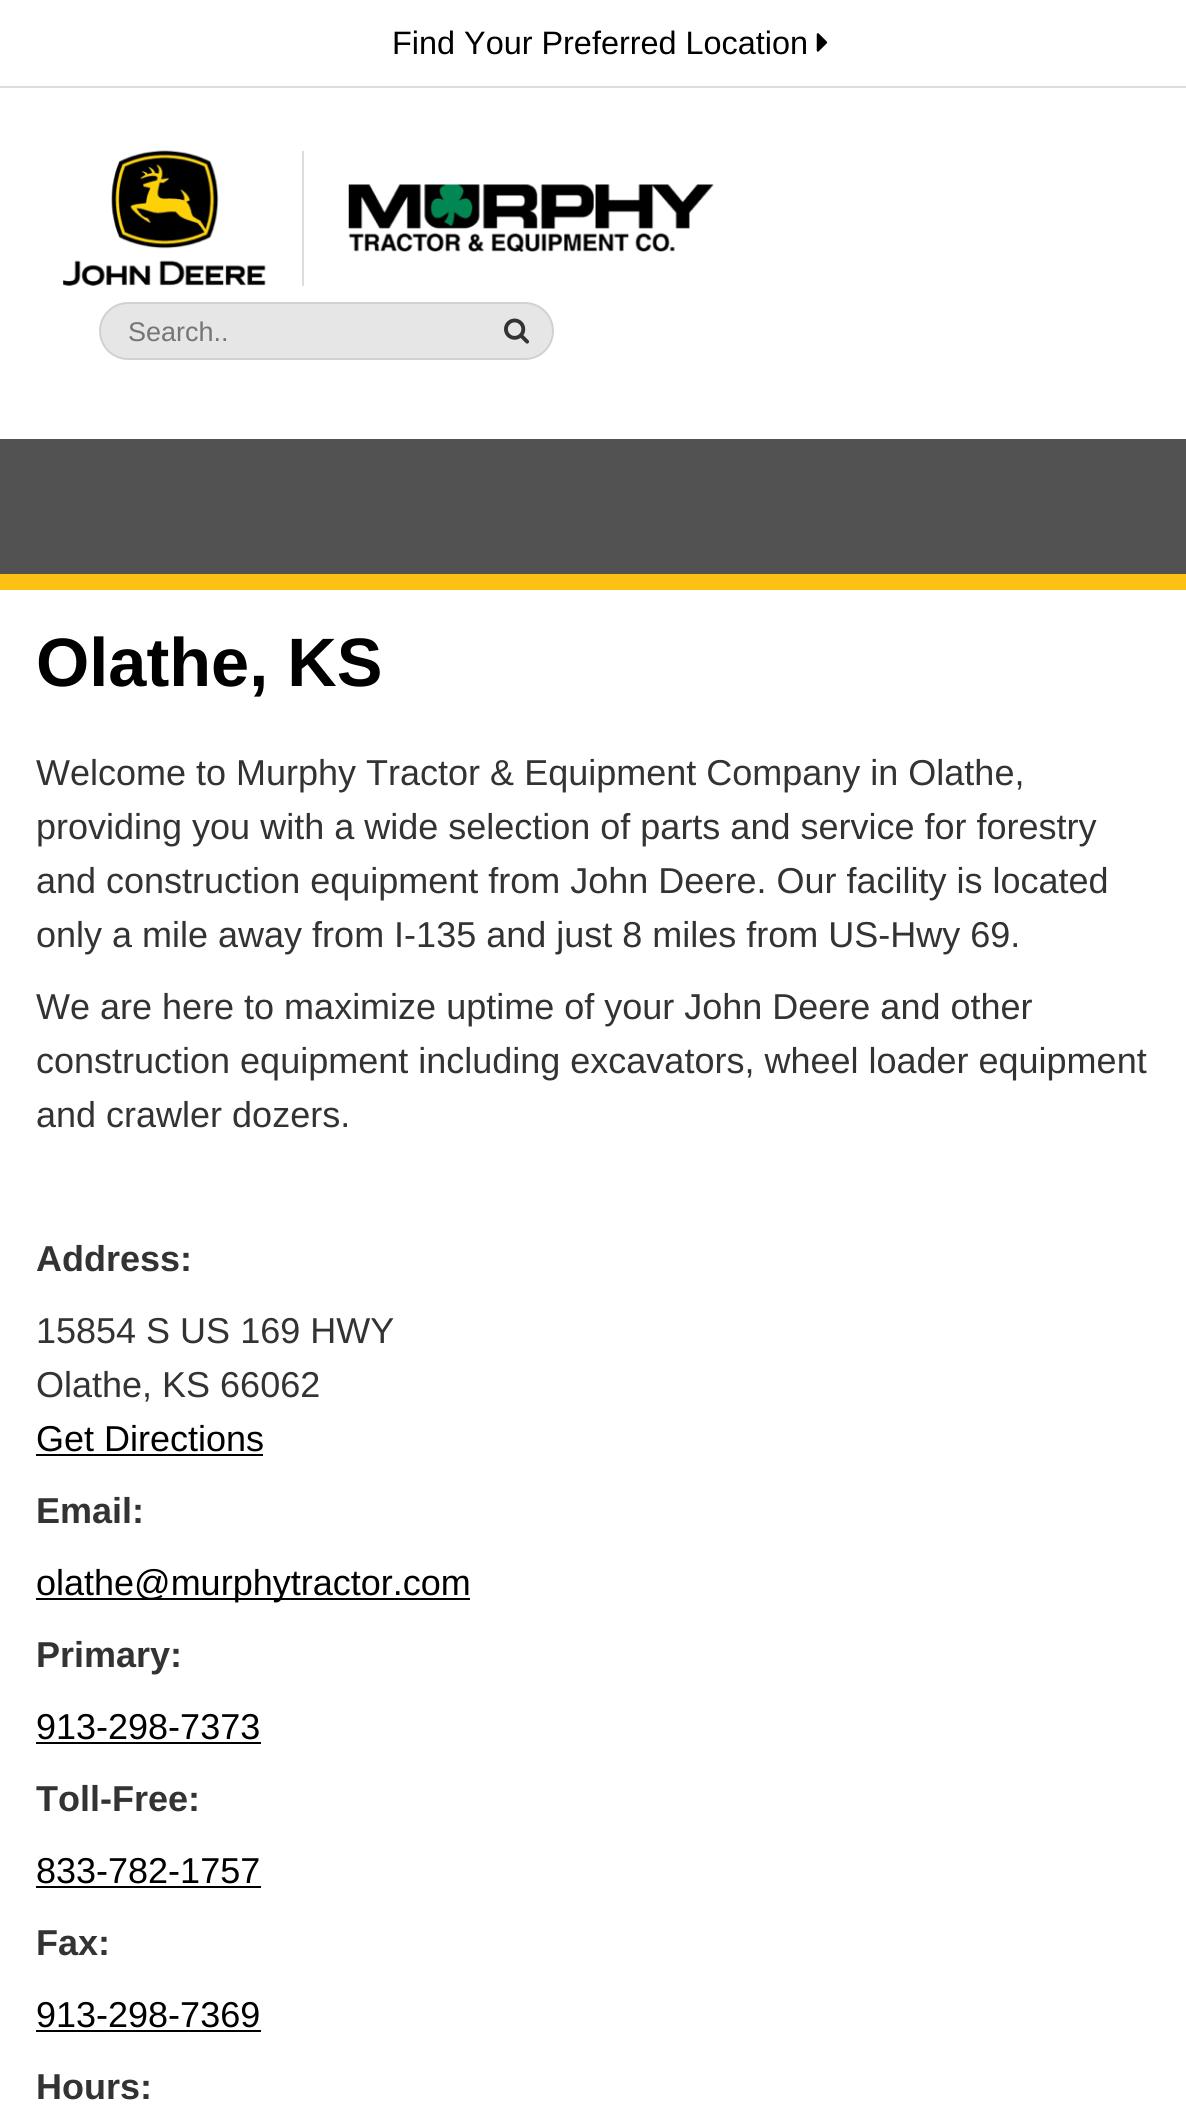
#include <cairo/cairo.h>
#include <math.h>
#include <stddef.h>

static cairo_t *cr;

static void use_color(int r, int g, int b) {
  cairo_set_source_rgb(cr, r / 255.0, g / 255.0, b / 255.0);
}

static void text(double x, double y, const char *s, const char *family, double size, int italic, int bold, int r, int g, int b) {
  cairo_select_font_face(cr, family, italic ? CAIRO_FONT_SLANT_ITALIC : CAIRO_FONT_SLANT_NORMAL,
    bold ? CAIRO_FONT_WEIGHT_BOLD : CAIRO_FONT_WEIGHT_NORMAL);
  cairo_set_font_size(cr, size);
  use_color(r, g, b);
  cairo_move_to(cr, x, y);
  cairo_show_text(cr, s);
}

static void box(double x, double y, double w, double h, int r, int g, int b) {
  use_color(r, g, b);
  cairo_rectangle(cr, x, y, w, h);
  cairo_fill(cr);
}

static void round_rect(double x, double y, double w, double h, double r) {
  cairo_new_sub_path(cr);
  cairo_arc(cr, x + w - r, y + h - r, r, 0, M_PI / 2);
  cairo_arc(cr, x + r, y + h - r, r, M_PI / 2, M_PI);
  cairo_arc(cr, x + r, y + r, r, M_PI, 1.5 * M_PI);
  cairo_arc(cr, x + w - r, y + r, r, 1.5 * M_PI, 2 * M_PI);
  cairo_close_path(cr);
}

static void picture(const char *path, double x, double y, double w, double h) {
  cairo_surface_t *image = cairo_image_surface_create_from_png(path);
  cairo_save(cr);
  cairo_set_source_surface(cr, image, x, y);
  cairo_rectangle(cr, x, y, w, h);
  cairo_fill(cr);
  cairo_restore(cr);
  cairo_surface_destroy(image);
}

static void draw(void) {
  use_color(255, 255, 255);
  cairo_paint(cr);
  box(0, 86, 1186, 2, 221, 221, 221);
  picture("img_01.png", 816, 33, 12, 19);
  box(302, 151, 2, 135, 221, 221, 221);
  picture("img_02.png", 63, 150, 203, 136);
  picture("img_03.png", 348, 184, 366, 68);
  use_color(230, 230, 230);
  round_rect(100, 303, 453, 56, 28);
  cairo_fill_preserve(cr);
  use_color(209, 209, 209);
  cairo_stroke(cr);
  picture("img_04.png", 504, 318, 26, 26);
  box(0, 439, 1186, 135, 82, 82, 82);
  box(0, 574, 1186, 16, 253, 193, 19);
  box(36, 1454, 227, 2, 0, 0, 0);
  box(36, 1598, 434, 2, 0, 0, 0);
  box(36, 1742, 225, 2, 0, 0, 0);
  box(36, 1886, 225, 2, 0, 0, 0);
  box(36, 2030, 225, 2, 0, 0, 0);
  text(392, 54, "Find Your Preferred Location", "Liberation Sans", 32.4, 0, 0, 0, 0, 0);
  text(128, 341, "Search..", "Liberation Sans", 27, 0, 0, 117, 117, 117);
  text(36, 686, "Olathe, KS", "Liberation Sans", 68.5, 0, 1, 0, 0, 0);
  text(36, 785, "Welcome to Murphy Tractor & Equipment Company in Olathe,", "Liberation Sans", 36, 0, 0, 51, 51, 51);
  text(36, 839, "providing you with a wide selection of parts and service for forestry", "Liberation Sans", 36, 0, 0, 51, 51, 51);
  text(36, 893, "and construction equipment from John Deere. Our facility is located", "Liberation Sans", 36, 0, 0, 51, 51, 51);
  text(36, 947, "only a mile away from I-135 and just 8 miles from US-Hwy 69.", "Liberation Sans", 36, 0, 0, 51, 51, 51);
  text(36, 1019, "We are here to maximize uptime of your John Deere and other", "Liberation Sans", 36, 0, 0, 51, 51, 51);
  text(36, 1073, "construction equipment including excavators, wheel loader equipment", "Liberation Sans", 36, 0, 0, 51, 51, 51);
  text(36, 1127, "and crawler dozers.", "Liberation Sans", 36, 0, 0, 51, 51, 51);
  text(36, 1271, "Address:", "Liberation Sans", 36, 0, 1, 51, 51, 51);
  text(36, 1343, "15854 S US 169 HWY", "Liberation Sans", 36, 0, 0, 51, 51, 51);
  text(36, 1397, "Olathe, KS 66062", "Liberation Sans", 36, 0, 0, 51, 51, 51);
  text(36, 1451, "Get Directions", "Liberation Sans", 36, 0, 0, 0, 0, 0);
  text(36, 1523, "Email:", "Liberation Sans", 36, 0, 1, 51, 51, 51);
  text(36, 1595, "olathe@murphytractor.com", "Liberation Sans", 36, 0, 0, 0, 0, 0);
  text(36, 1667, "Primary:", "Liberation Sans", 36, 0, 1, 51, 51, 51);
  text(36, 1739, "913-298-7373", "Liberation Sans", 36, 0, 0, 0, 0, 0);
  text(36, 1811, "Toll-Free:", "Liberation Sans", 36, 0, 1, 51, 51, 51);
  text(36, 1883, "833-782-1757", "Liberation Sans", 36, 0, 0, 0, 0, 0);
  text(36, 1955, "Fax:", "Liberation Sans", 36, 0, 1, 51, 51, 51);
  text(36, 2027, "913-298-7369", "Liberation Sans", 36, 0, 0, 0, 0, 0);
  text(36, 2099, "Hours:", "Liberation Sans", 36, 0, 1, 51, 51, 51);
}

int main(void) {
  cairo_surface_t *surface = cairo_image_surface_create(CAIRO_FORMAT_RGB24, 1186, 2119);
  cr = cairo_create(surface);
  cairo_font_options_t *options = cairo_font_options_create();
  cairo_font_options_set_hint_metrics(options, CAIRO_HINT_METRICS_OFF);
  cairo_font_options_set_hint_style(options, CAIRO_HINT_STYLE_NONE);
  cairo_set_font_options(cr, options);
  cairo_set_miter_limit(cr, 4);
  draw();
  cairo_surface_write_to_png(surface, "out.png");
  cairo_font_options_destroy(options);
  cairo_destroy(cr);
  cairo_surface_destroy(surface);
  return 0;
}
